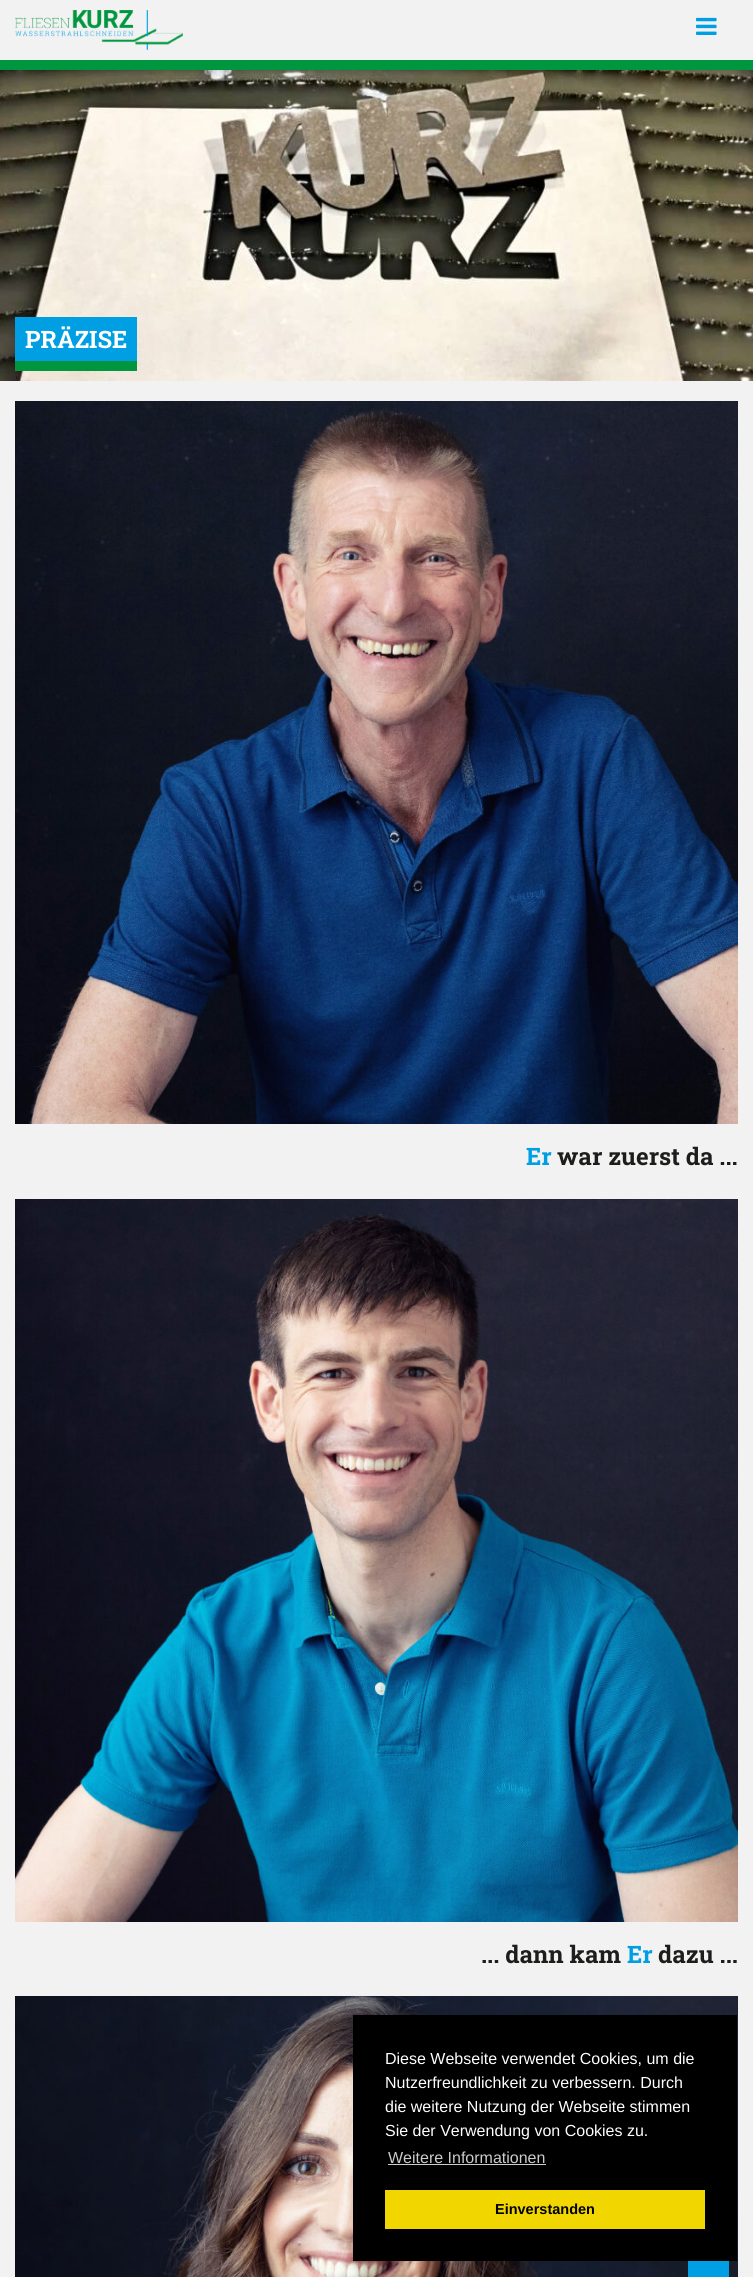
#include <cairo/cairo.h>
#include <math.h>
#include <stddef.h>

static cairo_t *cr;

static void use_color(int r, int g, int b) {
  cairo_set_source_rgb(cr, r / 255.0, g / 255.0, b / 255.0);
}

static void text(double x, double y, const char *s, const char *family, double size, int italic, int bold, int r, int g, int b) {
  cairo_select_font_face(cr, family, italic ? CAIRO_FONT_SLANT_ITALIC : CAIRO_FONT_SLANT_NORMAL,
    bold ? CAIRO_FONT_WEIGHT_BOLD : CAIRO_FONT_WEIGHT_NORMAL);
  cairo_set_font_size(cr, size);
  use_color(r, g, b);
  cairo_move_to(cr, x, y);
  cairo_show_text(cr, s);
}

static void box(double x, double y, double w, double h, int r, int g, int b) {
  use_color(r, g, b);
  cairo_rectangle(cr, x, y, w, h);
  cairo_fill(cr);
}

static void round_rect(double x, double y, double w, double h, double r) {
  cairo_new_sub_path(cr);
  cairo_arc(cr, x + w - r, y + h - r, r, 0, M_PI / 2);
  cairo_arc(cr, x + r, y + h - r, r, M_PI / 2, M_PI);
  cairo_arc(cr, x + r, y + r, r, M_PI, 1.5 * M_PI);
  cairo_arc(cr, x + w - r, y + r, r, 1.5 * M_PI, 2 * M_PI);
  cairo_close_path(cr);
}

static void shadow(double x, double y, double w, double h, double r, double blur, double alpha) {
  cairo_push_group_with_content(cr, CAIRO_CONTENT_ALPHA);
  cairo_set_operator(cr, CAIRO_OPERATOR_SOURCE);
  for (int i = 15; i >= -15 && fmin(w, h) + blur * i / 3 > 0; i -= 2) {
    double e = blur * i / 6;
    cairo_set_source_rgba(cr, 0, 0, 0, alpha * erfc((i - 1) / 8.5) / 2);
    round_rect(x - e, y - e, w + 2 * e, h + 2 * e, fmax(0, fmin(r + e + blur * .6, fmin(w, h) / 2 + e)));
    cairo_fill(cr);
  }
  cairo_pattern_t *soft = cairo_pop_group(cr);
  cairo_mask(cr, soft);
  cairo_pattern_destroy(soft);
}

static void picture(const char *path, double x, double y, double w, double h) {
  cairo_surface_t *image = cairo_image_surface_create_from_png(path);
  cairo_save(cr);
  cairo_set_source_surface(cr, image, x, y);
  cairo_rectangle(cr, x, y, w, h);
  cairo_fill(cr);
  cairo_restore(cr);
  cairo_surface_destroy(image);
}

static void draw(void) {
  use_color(242, 242, 242);
  cairo_paint(cr);
  picture("img_03.png", 0, 70, 753, 311);
  cairo_save(cr);
  cairo_rectangle(cr, 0, 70, 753, 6);
  cairo_clip(cr);
  use_color(0, 0, 0);
  shadow(4, 6, 745, 62, 0, 5.5, 0.3);
  cairo_restore(cr);
  box(0, 60, 753, 10, 0, 150, 64);
  picture("img_01.png", 15, 10, 168, 40);
  picture("img_02.png", 696, 17, 21, 18);
  picture("img_06.png", 15, 1996, 723, 281);
  box(688, 2261, 41, 16, 0, 159, 227);
  box(15, 317, 122, 44, 0, 159, 227);
  box(15, 361, 122, 10, 0, 150, 64);
  picture("img_04.png", 15, 401, 723, 723);
  picture("img_05.png", 15, 1199, 723, 723);
  box(353, 2015, 384, 246, 0, 0, 0);
  box(388, 2164, 158, 1, 204, 204, 204);
  box(385, 2190, 320, 39, 241, 214, 0);
  text(25, 348, "PRÄZISE", "Roboto Slab", 24, 0, 1, 255, 255, 255);
  text(526, 1165, "Er", "Roboto Slab", 24, 0, 1, 0, 159, 227);
  text(557, 1165, "war zuerst da ...", "Roboto Slab", 24, 0, 1, 29, 29, 27);
  text(481, 1963, "... dann kam", "Roboto Slab", 24, 0, 1, 29, 29, 27);
  text(627, 1963, "Er", "Roboto Slab", 24, 0, 1, 0, 159, 227);
  text(658, 1963, "dazu ...", "Roboto Slab", 24, 0, 1, 29, 29, 27);
  text(385, 2064, "Diese Webseite verwendet Cookies, um die", "Liberation Sans", 16, 0, 0, 255, 255, 255);
  text(385, 2088, "Nutzerfreundlichkeit zu verbessern. Durch", "Liberation Sans", 16, 0, 0, 255, 255, 255);
  text(385, 2112, "die weitere Nutzung der Webseite stimmen", "Liberation Sans", 16, 0, 0, 255, 255, 255);
  text(385, 2136, "Sie der Verwendung von Cookies zu.", "Liberation Sans", 16, 0, 0, 255, 255, 255);
  text(388, 2163, "Weitere Informationen", "Liberation Sans", 16, 0, 0, 204, 204, 204);
  text(495, 2214, "Einverstanden", "Liberation Sans", 14.5, 0, 1, 0, 0, 0);
}

int main(void) {
  cairo_surface_t *surface = cairo_image_surface_create(CAIRO_FORMAT_RGB24, 753, 2277);
  cr = cairo_create(surface);
  cairo_font_options_t *options = cairo_font_options_create();
  cairo_font_options_set_hint_metrics(options, CAIRO_HINT_METRICS_OFF);
  cairo_font_options_set_hint_style(options, CAIRO_HINT_STYLE_NONE);
  cairo_set_font_options(cr, options);
  cairo_set_miter_limit(cr, 4);
  draw();
  cairo_surface_write_to_png(surface, "out.png");
  cairo_font_options_destroy(options);
  cairo_destroy(cr);
  cairo_surface_destroy(surface);
  return 0;
}
